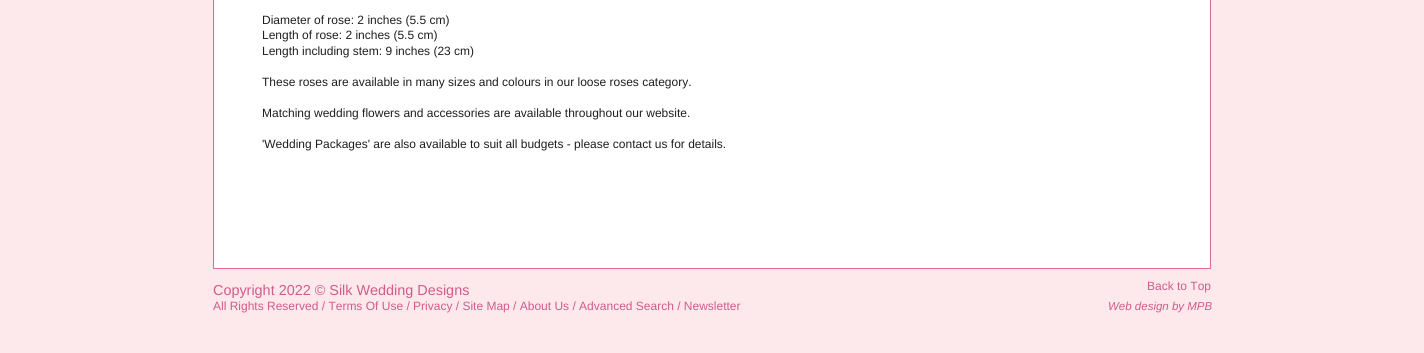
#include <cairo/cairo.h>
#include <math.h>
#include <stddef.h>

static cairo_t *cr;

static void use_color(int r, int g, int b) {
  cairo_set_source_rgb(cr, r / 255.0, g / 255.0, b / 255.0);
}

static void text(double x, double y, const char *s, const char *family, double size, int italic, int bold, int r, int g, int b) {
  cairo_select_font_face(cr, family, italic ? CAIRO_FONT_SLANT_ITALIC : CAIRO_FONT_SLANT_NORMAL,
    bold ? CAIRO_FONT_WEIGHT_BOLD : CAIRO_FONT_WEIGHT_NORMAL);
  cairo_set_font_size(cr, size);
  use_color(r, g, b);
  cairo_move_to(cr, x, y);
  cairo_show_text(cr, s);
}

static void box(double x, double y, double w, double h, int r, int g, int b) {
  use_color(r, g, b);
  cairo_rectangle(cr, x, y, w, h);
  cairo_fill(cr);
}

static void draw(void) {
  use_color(253, 232, 236);
  cairo_paint(cr);
  box(214, 0, 996, 268, 255, 255, 255);
  box(1210, 0, 1, 269, 223, 104, 151);
  box(213, 268, 998, 1, 223, 104, 151);
  box(213, 0, 1, 269, 223, 104, 151);
  text(262, 24, "Diameter of rose: 2 inches (5.5 cm)", "Liberation Sans", 12, 0, 0, 30, 30, 30);
  text(262, 39, "Length of rose: 2 inches (5.5 cm)", "Liberation Sans", 12, 0, 0, 30, 30, 30);
  text(262, 55, "Length including stem: 9 inches (23 cm)", "Liberation Sans", 12, 0, 0, 30, 30, 30);
  text(262, 86, "These roses are available in many sizes and colours in our loose roses category.", "Liberation Sans", 12, 0, 0, 30, 30, 30);
  text(262, 117, "Matching wedding flowers and accessories are available throughout our website.", "Liberation Sans", 12, 0, 0, 30, 30, 30);
  text(262, 148, "'Wedding Packages' are also available to suit all budgets - please contact us for details.", "Liberation Sans", 12, 0, 0, 30, 30, 30);
  text(213, 295, "Copyright 2022 © Silk Wedding Designs", "Liberation Sans", 14.4, 0, 0, 207, 92, 138);
  text(213, 310, "All Rights Reserved / Terms Of Use / Privacy / Site Map / About Us / Advanced Search / Newsletter", "Liberation Sans", 12, 0, 0, 207, 92, 138);
  text(1147, 290, "Back to Top", "Liberation Sans", 12, 0, 0, 207, 92, 138);
  text(1108, 310, "Web design by MPB", "Liberation Sans", 11.5, 1, 0, 207, 92, 138);
}

int main(void) {
  cairo_surface_t *surface = cairo_image_surface_create(CAIRO_FORMAT_RGB24, 1424, 353);
  cr = cairo_create(surface);
  cairo_font_options_t *options = cairo_font_options_create();
  cairo_font_options_set_hint_metrics(options, CAIRO_HINT_METRICS_OFF);
  cairo_font_options_set_hint_style(options, CAIRO_HINT_STYLE_NONE);
  cairo_set_font_options(cr, options);
  cairo_set_miter_limit(cr, 4);
  draw();
  cairo_surface_write_to_png(surface, "out.png");
  cairo_font_options_destroy(options);
  cairo_destroy(cr);
  cairo_surface_destroy(surface);
  return 0;
}
